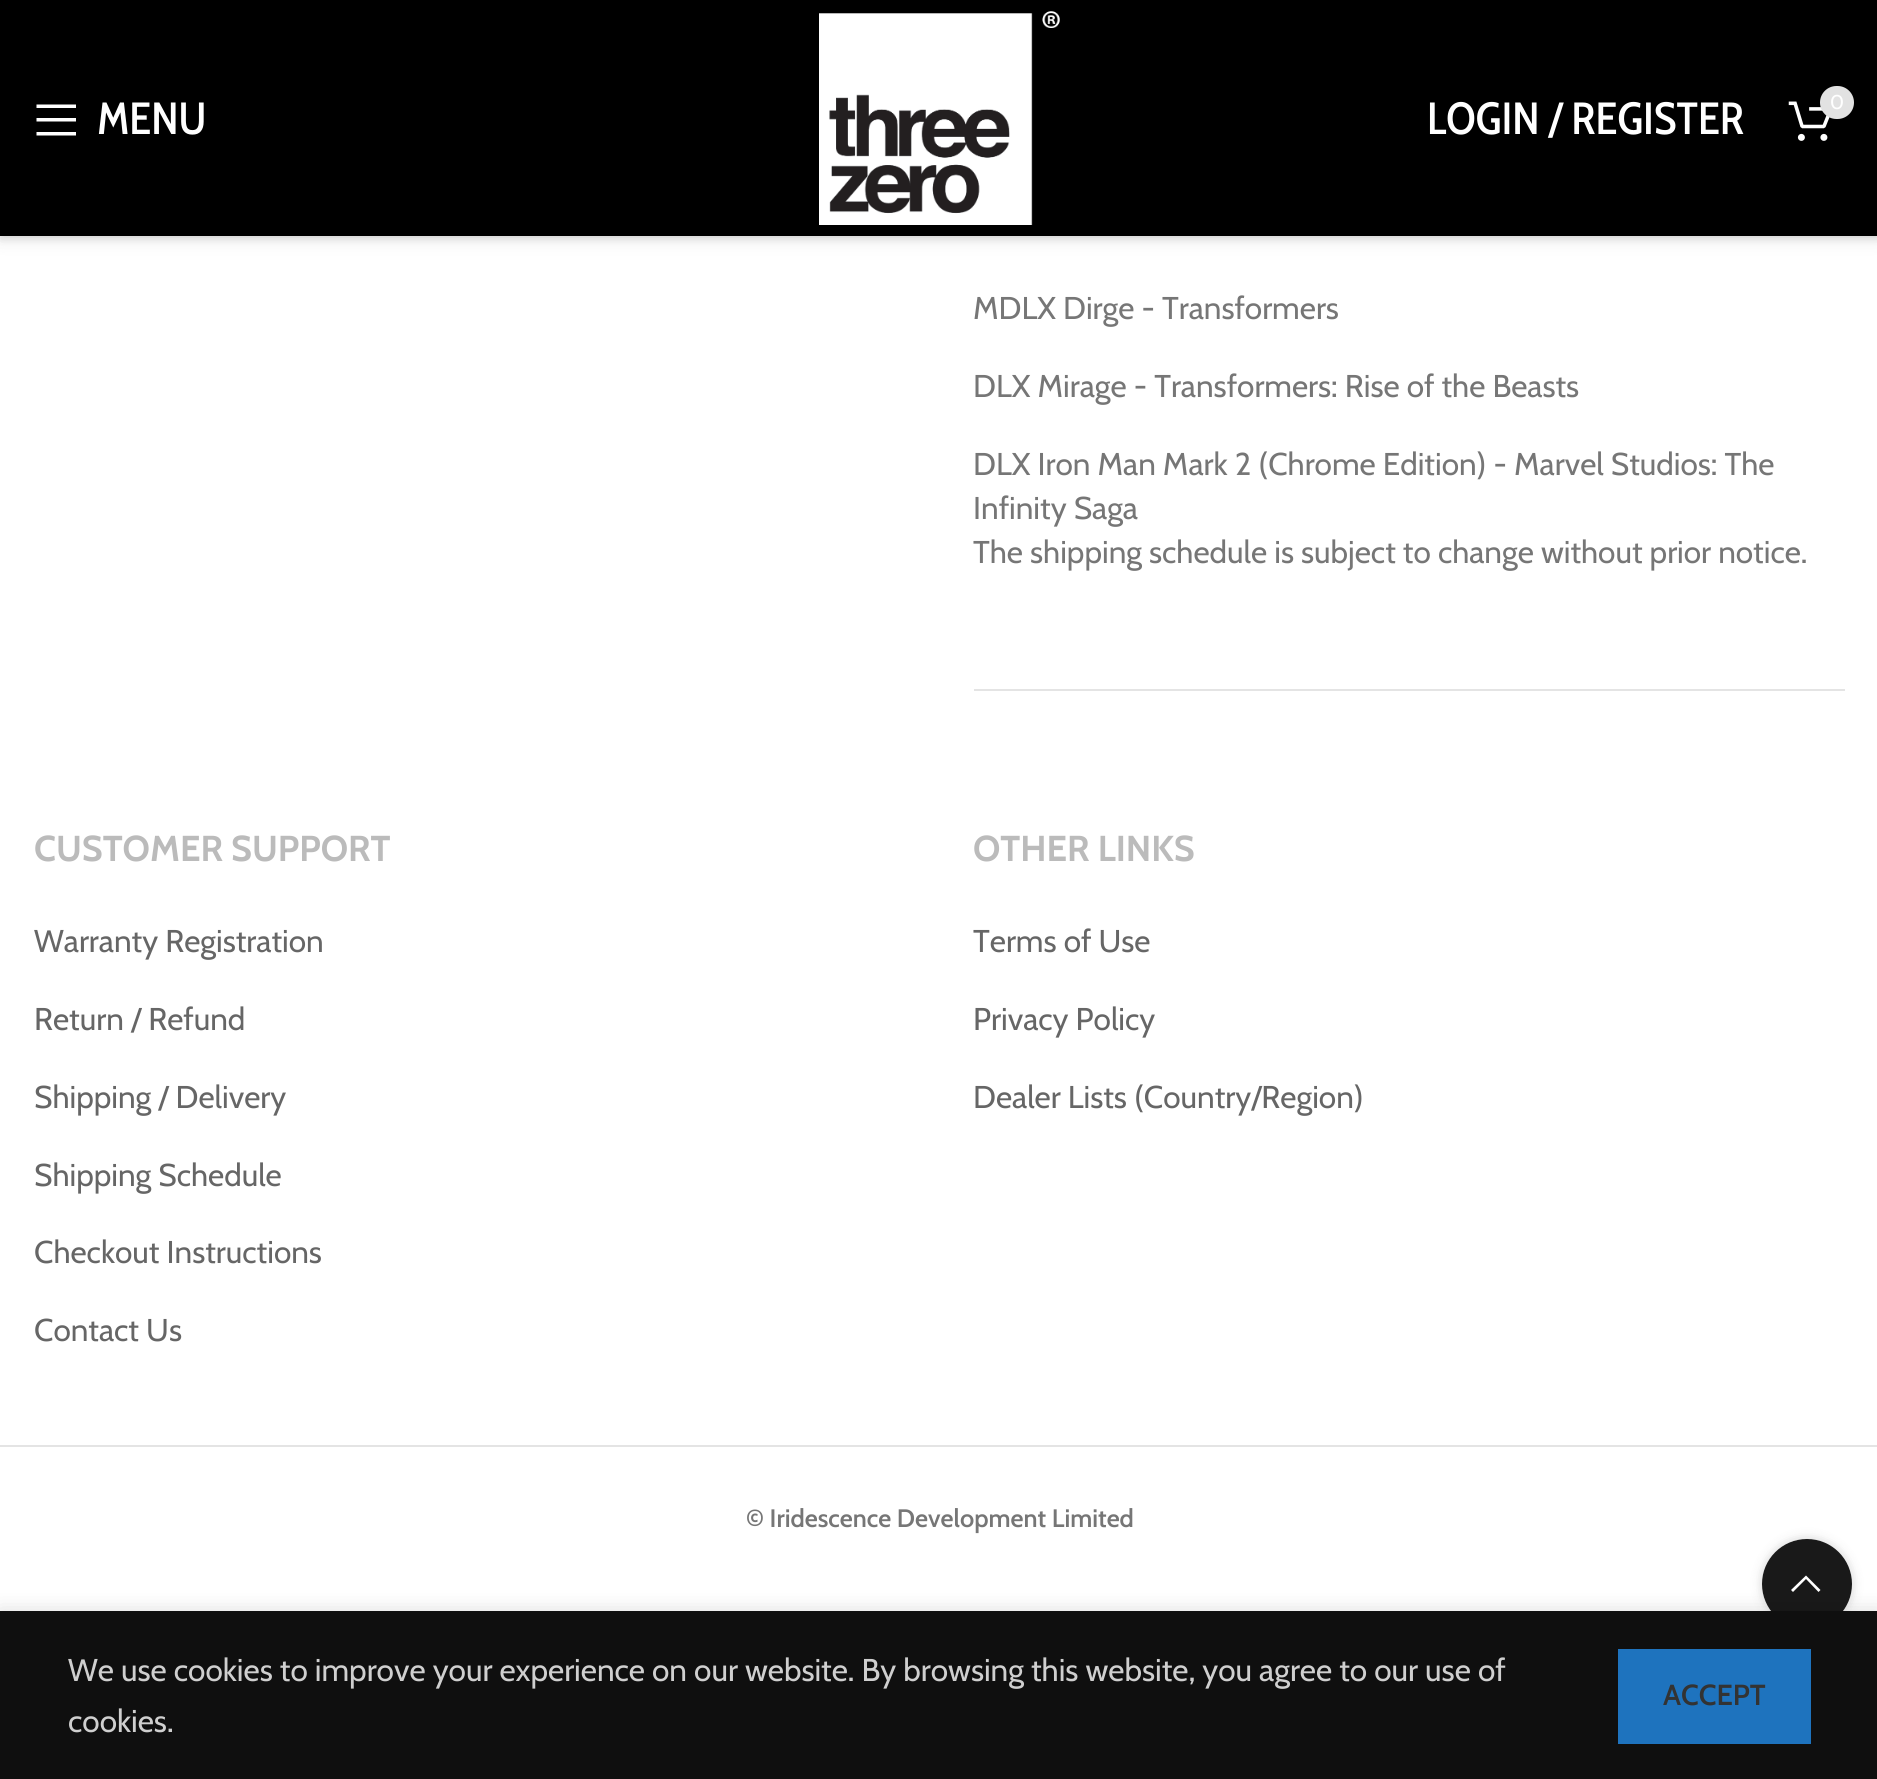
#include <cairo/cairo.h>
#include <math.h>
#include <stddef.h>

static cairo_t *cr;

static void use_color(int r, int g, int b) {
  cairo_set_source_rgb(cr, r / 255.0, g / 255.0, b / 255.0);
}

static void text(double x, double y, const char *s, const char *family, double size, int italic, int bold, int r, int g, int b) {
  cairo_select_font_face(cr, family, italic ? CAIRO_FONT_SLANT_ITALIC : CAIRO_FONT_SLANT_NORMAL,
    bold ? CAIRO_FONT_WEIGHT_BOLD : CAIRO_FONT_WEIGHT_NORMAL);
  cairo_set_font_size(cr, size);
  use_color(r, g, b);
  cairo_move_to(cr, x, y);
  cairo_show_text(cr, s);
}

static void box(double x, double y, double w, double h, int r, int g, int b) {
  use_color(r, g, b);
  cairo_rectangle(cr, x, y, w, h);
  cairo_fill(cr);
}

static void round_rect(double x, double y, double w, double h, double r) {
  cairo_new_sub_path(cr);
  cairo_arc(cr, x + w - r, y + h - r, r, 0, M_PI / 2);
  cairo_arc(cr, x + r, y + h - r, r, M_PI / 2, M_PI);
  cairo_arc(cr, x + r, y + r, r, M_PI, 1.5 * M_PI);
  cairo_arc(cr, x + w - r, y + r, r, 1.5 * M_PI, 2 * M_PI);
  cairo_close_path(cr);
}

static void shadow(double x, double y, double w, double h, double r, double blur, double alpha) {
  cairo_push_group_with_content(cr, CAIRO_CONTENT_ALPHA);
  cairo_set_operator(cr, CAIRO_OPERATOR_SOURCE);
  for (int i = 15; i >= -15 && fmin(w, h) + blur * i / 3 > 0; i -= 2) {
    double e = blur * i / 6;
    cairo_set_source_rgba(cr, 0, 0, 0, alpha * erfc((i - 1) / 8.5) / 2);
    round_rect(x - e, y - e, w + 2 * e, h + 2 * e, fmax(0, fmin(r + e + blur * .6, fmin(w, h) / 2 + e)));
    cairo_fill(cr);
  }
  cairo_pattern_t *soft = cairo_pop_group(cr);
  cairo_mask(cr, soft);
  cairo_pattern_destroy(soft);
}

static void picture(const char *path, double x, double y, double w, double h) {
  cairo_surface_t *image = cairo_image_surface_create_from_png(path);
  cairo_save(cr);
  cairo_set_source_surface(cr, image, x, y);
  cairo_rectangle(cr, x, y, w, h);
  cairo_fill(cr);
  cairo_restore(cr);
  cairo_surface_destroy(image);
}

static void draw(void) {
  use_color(255, 255, 255);
  cairo_paint(cr);
  use_color(0, 0, 0);
  shadow(0, 2, 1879, 237, 0, 3.5, 0.1);
  shadow(0, 2, 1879, 237, 0, 9, 0.1);
  box(0, 0, 1877, 236, 0, 0, 0);
  use_color(255, 255, 255);
  cairo_new_path(cr);
  cairo_move_to(cr, 36.5, 108);
  cairo_line_to(cr, 76, 108);
  cairo_line_to(cr, 76, 104.5);
  cairo_line_to(cr, 36.5, 104.5);
  cairo_close_path(cr);
  cairo_move_to(cr, 36.5, 121.5);
  cairo_line_to(cr, 76, 121.5);
  cairo_line_to(cr, 76, 118);
  cairo_line_to(cr, 36.5, 118);
  cairo_close_path(cr);
  cairo_move_to(cr, 36.5, 135.5);
  cairo_line_to(cr, 76, 135.5);
  cairo_line_to(cr, 76, 132);
  cairo_line_to(cr, 36.5, 132);
  cairo_close_path(cr);
  cairo_fill(cr);
  picture("img_01.png", 819, 11, 241, 214);
  picture("img_02.png", 1788, 101, 42, 40);
  use_color(226, 226, 226);
  round_rect(1820, 86, 34, 33, 16.5);
  cairo_fill(cr);
  box(974, 689, 871, 2, 228, 228, 228);
  box(0, 1445, 1877, 2, 228, 228, 228);
  cairo_save(cr);
  cairo_set_fill_rule(cr, CAIRO_FILL_RULE_EVEN_ODD);
  cairo_new_path(cr);
  cairo_move_to(cr, 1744, 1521);
  cairo_line_to(cr, 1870, 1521);
  cairo_line_to(cr, 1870, 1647);
  cairo_line_to(cr, 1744, 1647);
  cairo_close_path(cr);
  cairo_move_to(cr, 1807, 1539);
  cairo_curve_to(cr, 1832, 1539, 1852, 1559, 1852, 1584);
  cairo_curve_to(cr, 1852, 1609, 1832, 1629, 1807, 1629);
  cairo_curve_to(cr, 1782, 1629, 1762, 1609, 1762, 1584);
  cairo_curve_to(cr, 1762, 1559, 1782, 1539, 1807, 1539);
  cairo_close_path(cr);
  cairo_clip(cr);
  use_color(0, 0, 0);
  shadow(1762, 1539, 90, 90, 45, 5.5, 0.17);
  cairo_restore(cr);
  cairo_set_source_rgba(cr, 0, 0, 0, 0.9);
  cairo_arc(cr, 1807, 1584, 45, 0, 2 * M_PI);
  cairo_fill(cr);
  use_color(255, 255, 255);
  cairo_new_path(cr);
  cairo_move_to(cr, 1818.5, 1592);
  cairo_line_to(cr, 1820.5, 1590);
  cairo_line_to(cr, 1806, 1575.5);
  cairo_line_to(cr, 1791, 1590);
  cairo_line_to(cr, 1793, 1592);
  cairo_line_to(cr, 1806, 1579);
  cairo_close_path(cr);
  cairo_fill(cr);
  use_color(0, 0, 0);
  shadow(0, 1611, 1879, 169, 0, 10, 0.14);
  box(0, 1611, 1877, 168, 15, 15, 15);
  box(1618, 1649, 193, 95, 30, 115, 190);
  text(97, 134, "MENU", "Cabin Condensed Medium", 45, 0, 0, 255, 255, 255);
  text(1427, 134, "LOGIN / REGISTER", "Cabin Condensed Medium", 45, 0, 0, 255, 255, 255);
  text(1830, 109, "0", "Cabin", 20, 0, 0, 255, 255, 255);
  text(973, 319, "MDLX Dirge - Transformers", "Cabin", 31.5, 0, 0, 118, 118, 118);
  text(973, 397, "DLX Mirage - Transformers: Rise of the Beasts", "Cabin", 31.5, 0, 0, 118, 118, 118);
  text(973, 475, "DLX Iron Man Mark 2 (Chrome Edition) - Marvel Studios: The", "Cabin", 31.5, 0, 0, 118, 118, 118);
  text(973, 519, "Infinity Saga", "Cabin", 31.5, 0, 0, 118, 118, 118);
  text(973, 563, "The shipping schedule is subject to change without prior notice.", "Cabin", 31.5, 0, 0, 118, 118, 118);
  text(34, 861, "CUSTOMER SUPPORT", "Cabin", 36, 0, 1, 187, 187, 187);
  text(34, 952, "Warranty Registration", "Cabin", 31.5, 0, 0, 102, 102, 102);
  text(34, 1030, "Return / Refund", "Cabin", 31.5, 0, 0, 102, 102, 102);
  text(34, 1108, "Shipping / Delivery", "Cabin", 31.5, 0, 0, 102, 102, 102);
  text(34, 1186, "Shipping Schedule", "Cabin", 31.5, 0, 0, 102, 102, 102);
  text(34, 1263, "Checkout Instructions", "Cabin", 31.5, 0, 0, 102, 102, 102);
  text(34, 1341, "Contact Us", "Cabin", 31.5, 0, 0, 102, 102, 102);
  text(973, 861, "OTHER LINKS", "Cabin", 36, 0, 1, 187, 187, 187);
  text(973, 952, "Terms of Use", "Cabin", 31.5, 0, 0, 102, 102, 102);
  text(973, 1030, "Privacy Policy", "Cabin", 31.5, 0, 0, 102, 102, 102);
  text(973, 1108, "Dealer Lists (Country/Region)", "Cabin", 31.5, 0, 0, 102, 102, 102);
  text(746, 1527, "© Iridescence Development Limited", "Cabin SemiBold", 25.25, 0, 0, 118, 118, 118);
  text(68, 1681, "We use cookies to improve your experience on our website. By browsing this website, you agree to our use of", "Cabin", 31.5, 0, 0, 207, 207, 207);
  text(68, 1732, "cookies.", "Cabin", 31.5, 0, 0, 207, 207, 207);
  text(1663, 1705, "ACCEPT", "Cabin SemiBold", 29, 0, 0, 51, 51, 51);
}

int main(void) {
  cairo_surface_t *surface = cairo_image_surface_create(CAIRO_FORMAT_RGB24, 1877, 1779);
  cr = cairo_create(surface);
  cairo_font_options_t *options = cairo_font_options_create();
  cairo_font_options_set_hint_metrics(options, CAIRO_HINT_METRICS_OFF);
  cairo_font_options_set_hint_style(options, CAIRO_HINT_STYLE_NONE);
  cairo_set_font_options(cr, options);
  cairo_set_miter_limit(cr, 4);
  draw();
  cairo_surface_write_to_png(surface, "out.png");
  cairo_font_options_destroy(options);
  cairo_destroy(cr);
  cairo_surface_destroy(surface);
  return 0;
}
